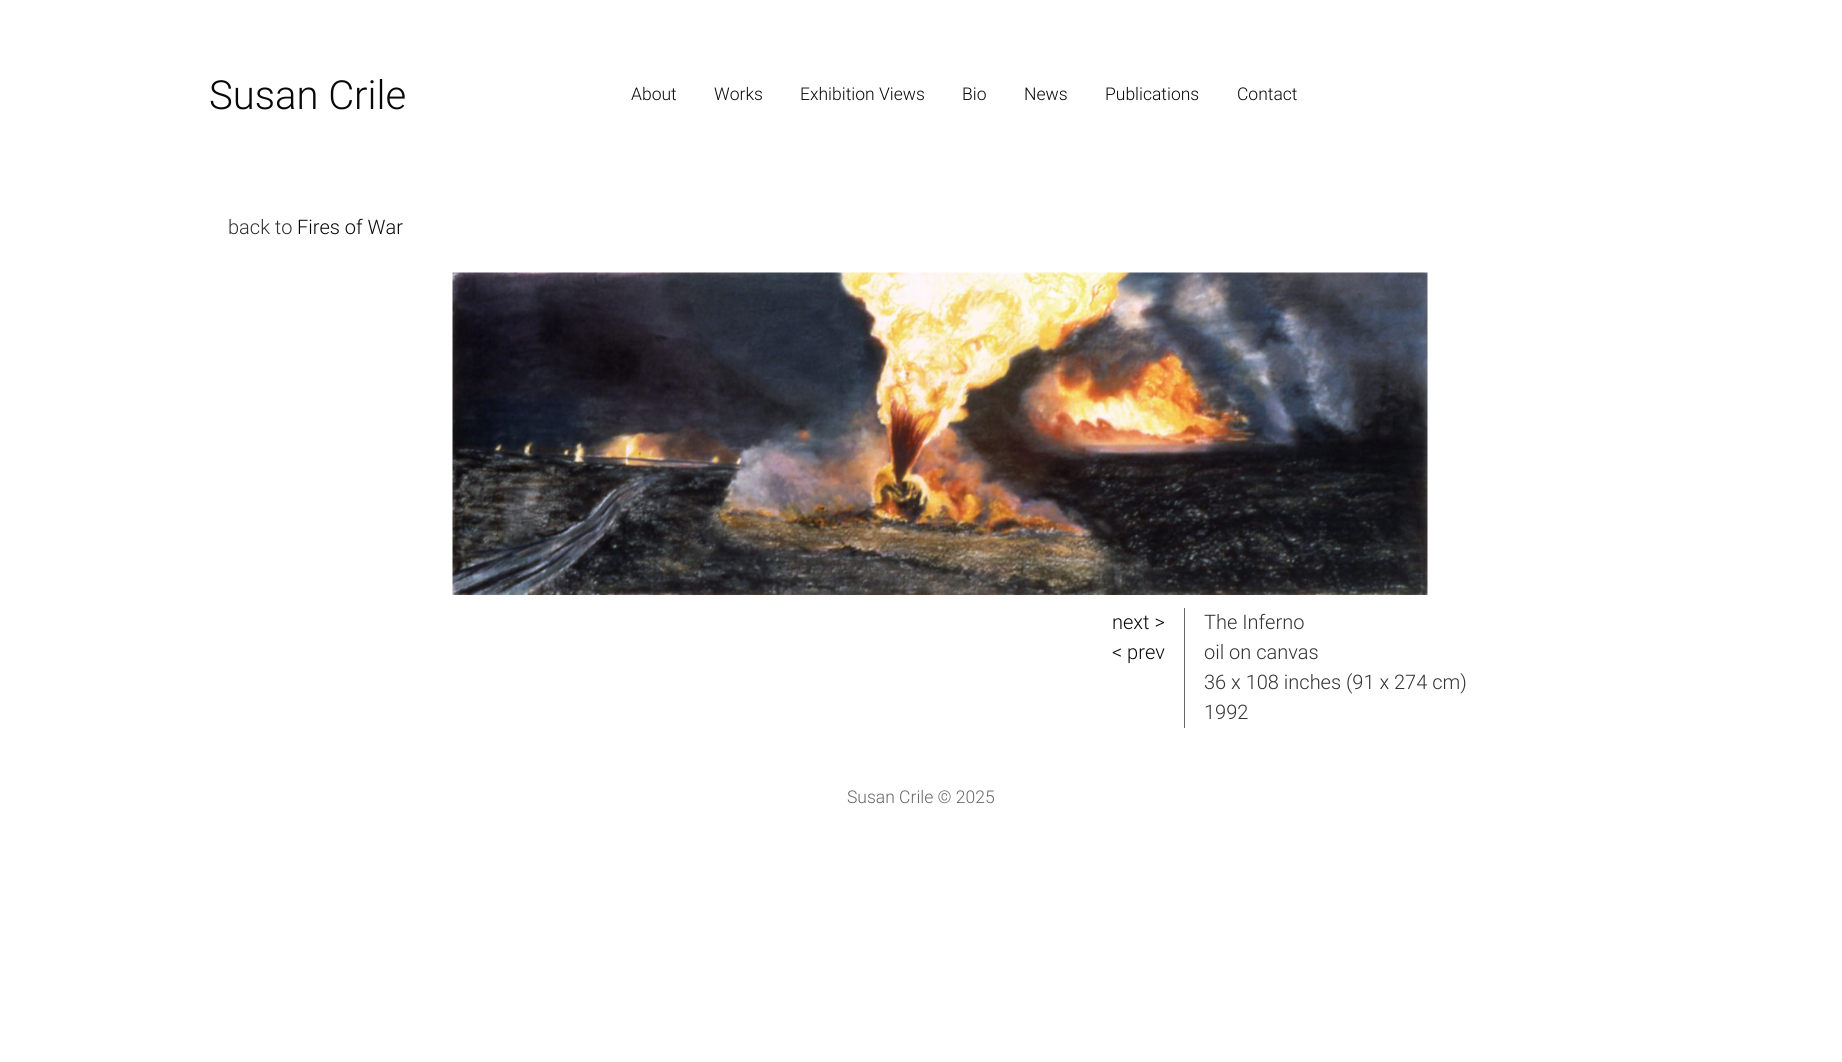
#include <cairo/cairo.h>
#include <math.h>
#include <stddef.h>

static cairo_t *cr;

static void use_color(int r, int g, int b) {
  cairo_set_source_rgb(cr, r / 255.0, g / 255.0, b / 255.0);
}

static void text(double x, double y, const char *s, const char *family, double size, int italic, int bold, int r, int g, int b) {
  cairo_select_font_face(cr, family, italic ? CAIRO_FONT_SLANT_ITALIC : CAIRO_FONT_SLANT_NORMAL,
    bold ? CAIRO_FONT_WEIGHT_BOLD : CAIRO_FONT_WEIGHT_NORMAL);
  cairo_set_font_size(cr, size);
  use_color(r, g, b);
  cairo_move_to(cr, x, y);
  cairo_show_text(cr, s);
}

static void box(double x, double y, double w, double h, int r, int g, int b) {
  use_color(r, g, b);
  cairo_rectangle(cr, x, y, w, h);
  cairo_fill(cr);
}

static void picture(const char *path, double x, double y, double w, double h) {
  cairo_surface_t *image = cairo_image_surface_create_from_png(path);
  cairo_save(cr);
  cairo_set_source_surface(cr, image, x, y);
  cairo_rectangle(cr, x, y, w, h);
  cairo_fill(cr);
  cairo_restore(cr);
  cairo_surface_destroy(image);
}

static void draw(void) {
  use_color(255, 255, 255);
  cairo_paint(cr);
  picture("img_01.png", 452, 272, 976, 323);
  box(1184, 608, 1, 120, 102, 102, 102);
  text(209, 109, "Susan Crile", "Roboto Light", 40, 0, 0, 8, 8, 8);
  text(631, 100, "About", "Roboto Light", 17.5, 0, 0, 8, 8, 8);
  text(714, 100, "Works", "Roboto Light", 17.5, 0, 0, 8, 8, 8);
  text(800, 100, "Exhibition Views", "Roboto Light", 17.5, 0, 0, 8, 8, 8);
  text(962, 100, "Bio", "Roboto Light", 17.5, 0, 0, 8, 8, 8);
  text(1024, 100, "News", "Roboto Light", 17.5, 0, 0, 8, 8, 8);
  text(1105, 100, "Publications", "Roboto Light", 17.5, 0, 0, 8, 8, 8);
  text(1237, 100, "Contact", "Roboto Light", 17.5, 0, 0, 8, 8, 8);
  text(228, 234, "back to", "Roboto Light", 20, 0, 0, 51, 51, 51);
  text(297, 234, "Fires of War", "Roboto Light", 20, 0, 0, 8, 8, 8);
  text(1112, 629, "next >", "Roboto Light", 20, 0, 0, 8, 8, 8);
  text(1112, 659, "< prev", "Roboto Light", 20, 0, 0, 8, 8, 8);
  text(1204, 629, "The Inferno", "Roboto Light", 20, 0, 0, 51, 51, 51);
  text(1204, 659, "oil on canvas", "Roboto Light", 20, 0, 0, 51, 51, 51);
  text(1204, 689, "36 x 108 inches (91 x 274 cm)", "Roboto Light", 20, 0, 0, 51, 51, 51);
  text(1204, 719, "1992", "Roboto Light", 20, 0, 0, 51, 51, 51);
  text(847, 803, "Susan Crile © 2025", "Roboto Light", 17.5, 0, 0, 102, 102, 102);
}

int main(void) {
  cairo_surface_t *surface = cairo_image_surface_create(CAIRO_FORMAT_RGB24, 1842, 1062);
  cr = cairo_create(surface);
  cairo_font_options_t *options = cairo_font_options_create();
  cairo_font_options_set_hint_metrics(options, CAIRO_HINT_METRICS_OFF);
  cairo_font_options_set_hint_style(options, CAIRO_HINT_STYLE_NONE);
  cairo_set_font_options(cr, options);
  cairo_set_miter_limit(cr, 4);
  draw();
  cairo_surface_write_to_png(surface, "out.png");
  cairo_font_options_destroy(options);
  cairo_destroy(cr);
  cairo_surface_destroy(surface);
  return 0;
}
